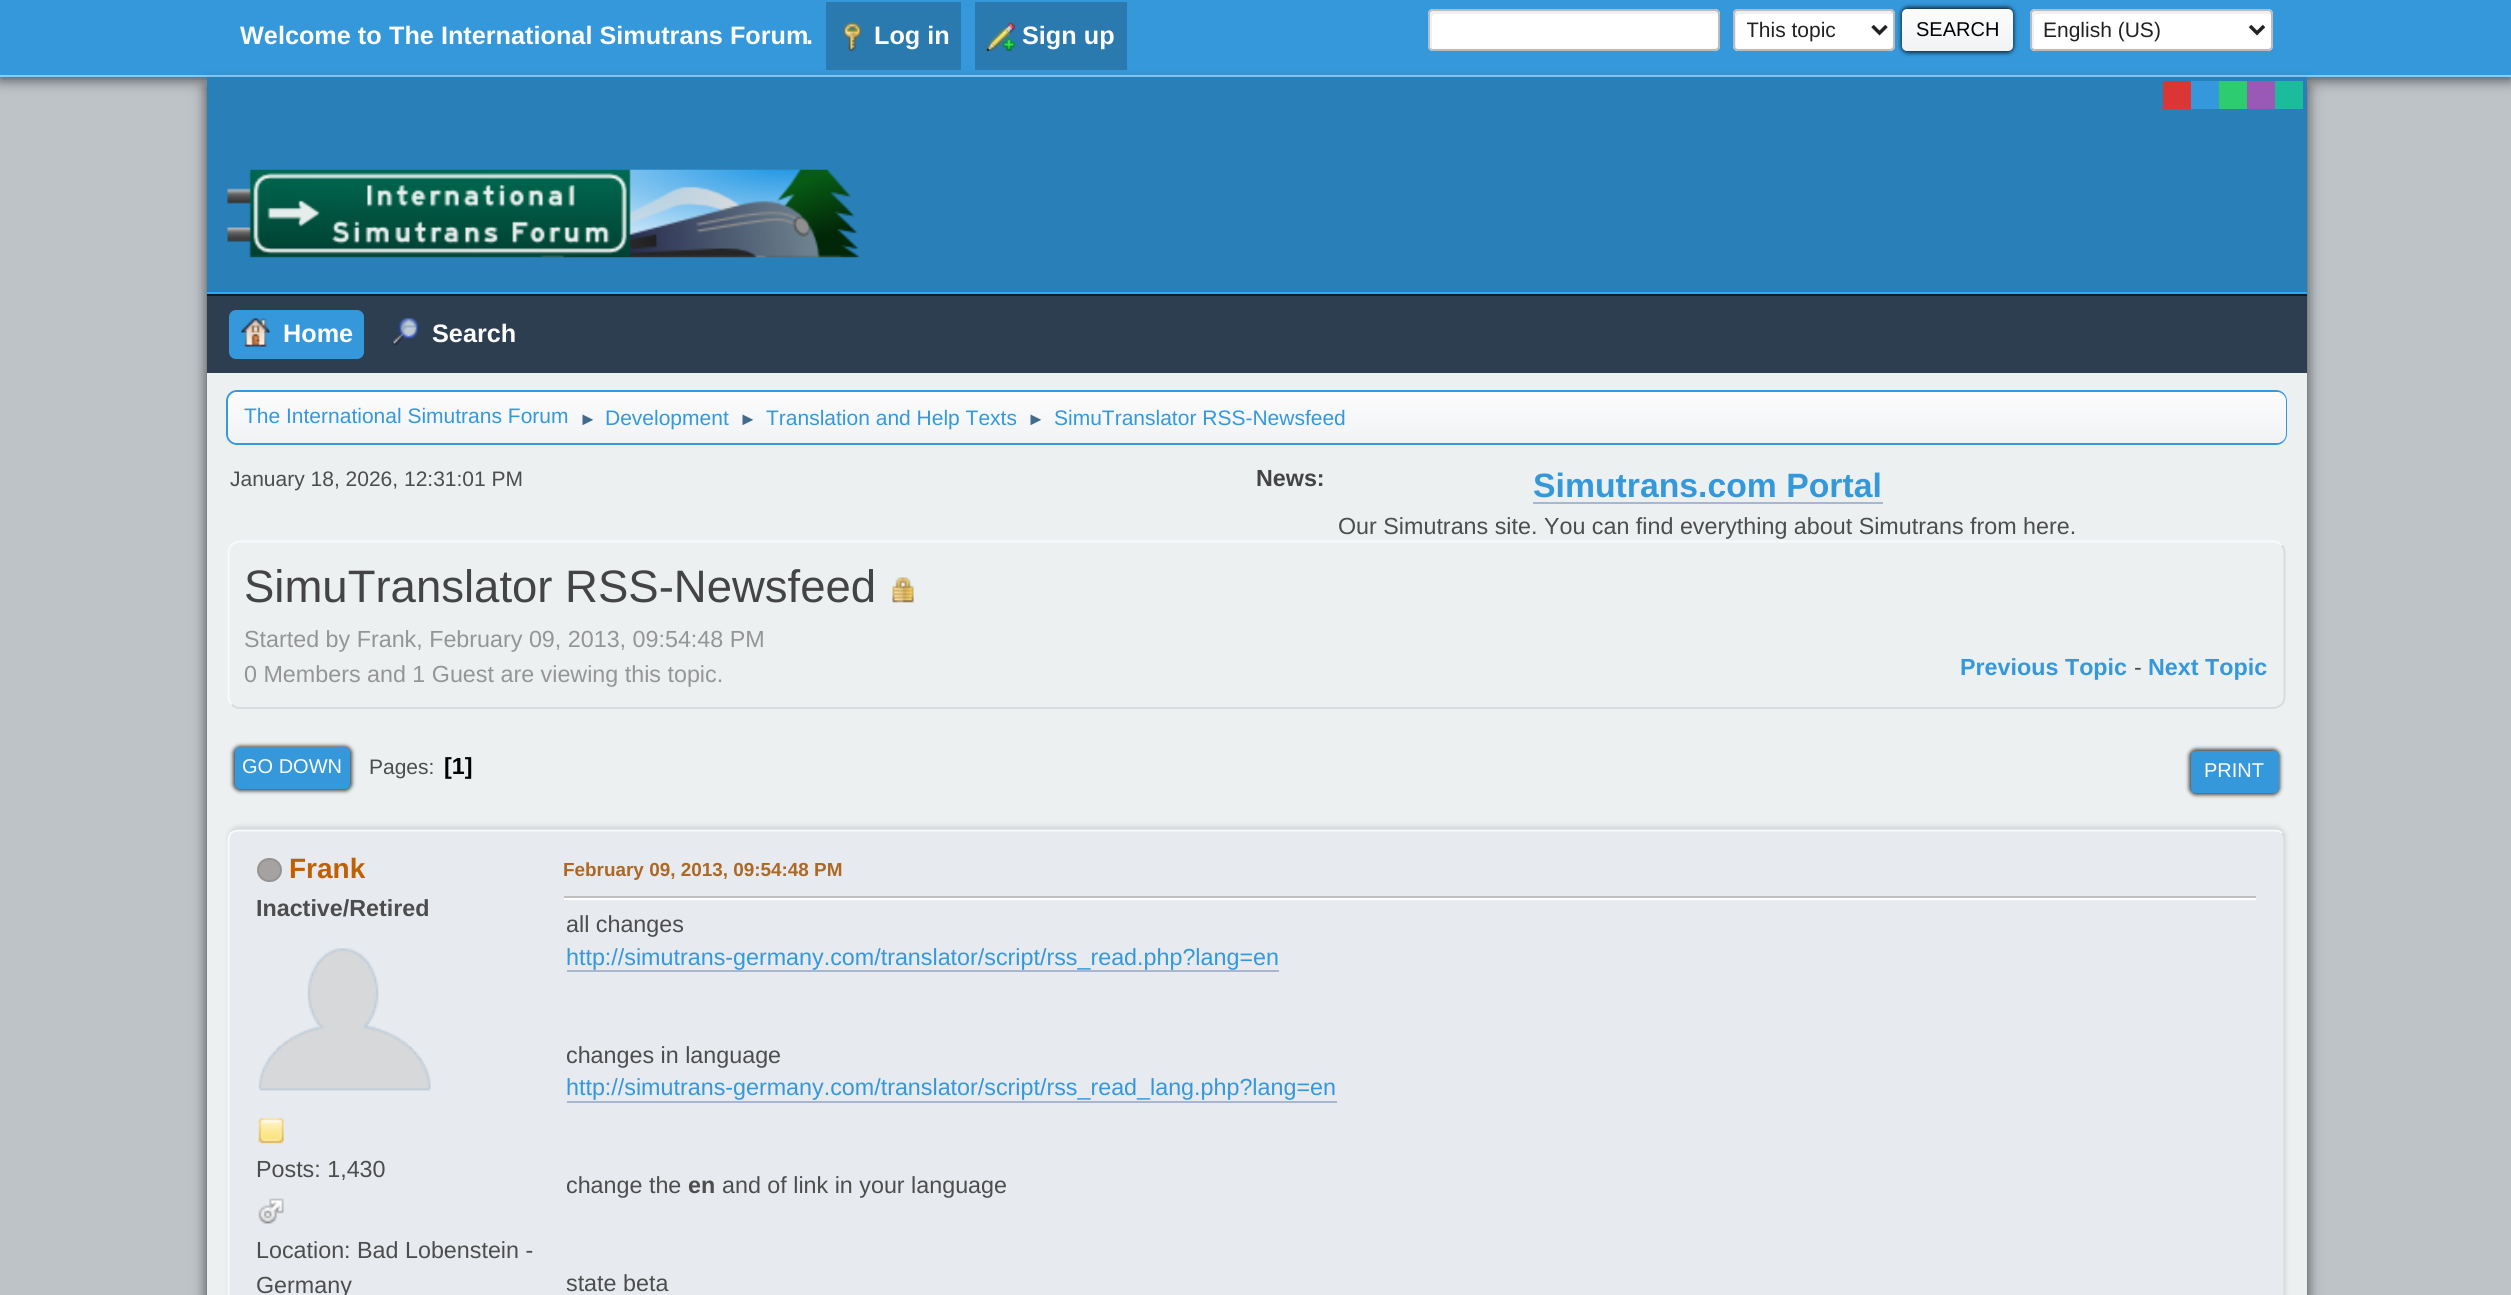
#include <cairo/cairo.h>
#include <math.h>
#include <stddef.h>

static cairo_t *cr;

static void use_color(int r, int g, int b) {
  cairo_set_source_rgb(cr, r / 255.0, g / 255.0, b / 255.0);
}

static void text(double x, double y, const char *s, const char *family, double size, int italic, int bold, int r, int g, int b) {
  cairo_select_font_face(cr, family, italic ? CAIRO_FONT_SLANT_ITALIC : CAIRO_FONT_SLANT_NORMAL,
    bold ? CAIRO_FONT_WEIGHT_BOLD : CAIRO_FONT_WEIGHT_NORMAL);
  cairo_set_font_size(cr, size);
  use_color(r, g, b);
  cairo_move_to(cr, x, y);
  cairo_show_text(cr, s);
}

static void box(double x, double y, double w, double h, int r, int g, int b) {
  use_color(r, g, b);
  cairo_rectangle(cr, x, y, w, h);
  cairo_fill(cr);
}

static void round_rect(double x, double y, double w, double h, double r) {
  cairo_new_sub_path(cr);
  cairo_arc(cr, x + w - r, y + h - r, r, 0, M_PI / 2);
  cairo_arc(cr, x + r, y + h - r, r, M_PI / 2, M_PI);
  cairo_arc(cr, x + r, y + r, r, M_PI, 1.5 * M_PI);
  cairo_arc(cr, x + w - r, y + r, r, 1.5 * M_PI, 2 * M_PI);
  cairo_close_path(cr);
}

static void shadow(double x, double y, double w, double h, double r, double blur, double alpha) {
  cairo_push_group_with_content(cr, CAIRO_CONTENT_ALPHA);
  cairo_set_operator(cr, CAIRO_OPERATOR_SOURCE);
  for (int i = 15; i >= -15 && fmin(w, h) + blur * i / 3 > 0; i -= 2) {
    double e = blur * i / 6;
    cairo_set_source_rgba(cr, 0, 0, 0, alpha * erfc((i - 1) / 8.5) / 2);
    round_rect(x - e, y - e, w + 2 * e, h + 2 * e, fmax(0, fmin(r + e + blur * .6, fmin(w, h) / 2 + e)));
    cairo_fill(cr);
  }
  cairo_pattern_t *soft = cairo_pop_group(cr);
  cairo_mask(cr, soft);
  cairo_pattern_destroy(soft);
}

static void picture(const char *path, double x, double y, double w, double h) {
  cairo_surface_t *image = cairo_image_surface_create_from_png(path);
  cairo_save(cr);
  cairo_set_source_surface(cr, image, x, y);
  cairo_rectangle(cr, x, y, w, h);
  cairo_fill(cr);
  cairo_restore(cr);
  cairo_surface_destroy(image);
}

static void draw(void) {
  cairo_pattern_t *gradient;
  use_color(189, 195, 199);
  cairo_paint(cr);
  use_color(50, 50, 50);
  shadow(0, 2, 2511, 77, 0, 7, 0.88);
  box(0, 0, 2511, 75, 52, 152, 219);
  box(0, 75, 2511, 2, 136, 205, 252);
  use_color(50, 50, 50);
  shadow(207, 86, 2100, 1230, 0, 7, 0.88);
  box(826, 2, 135, 68, 42, 122, 175);
  picture("img_01.png", 843, 22, 19, 29);
  box(975, 2, 152, 68, 42, 122, 175);
  picture("img_02.png", 987, 22, 28, 29);
  use_color(255, 255, 255);
  round_rect(1428, 9, 292, 42, 5);
  cairo_fill(cr);
  use_color(236, 241, 248);
  cairo_new_path(cr);
  cairo_move_to(cr, 1435, 14);
  cairo_line_to(cr, 1717, 14);
  cairo_line_to(cr, 1719, 15);
  cairo_curve_to(cr, 1719, 13, 1717, 11, 1715, 11);
  cairo_line_to(cr, 1434, 11);
  cairo_curve_to(cr, 1432, 11, 1430, 13, 1430, 15);
  cairo_line_to(cr, 1430, 45);
  cairo_curve_to(cr, 1430, 46, 1431, 48, 1432, 48);
  cairo_line_to(cr, 1432, 18);
  cairo_curve_to(cr, 1432, 16, 1433, 14, 1435, 14);
  cairo_close_path(cr);
  cairo_fill(cr);
  round_rect(1429, 10, 290, 40, 4);
  use_color(187, 187, 187);
  cairo_stroke(cr);
  use_color(255, 255, 255);
  round_rect(1733, 9, 162, 42, 5);
  cairo_fill(cr);
  use_color(236, 241, 248);
  cairo_new_path(cr);
  cairo_move_to(cr, 1740, 14);
  cairo_line_to(cr, 1892, 14);
  cairo_line_to(cr, 1894, 15);
  cairo_curve_to(cr, 1894, 13, 1892, 11, 1890, 11);
  cairo_line_to(cr, 1738, 11);
  cairo_curve_to(cr, 1736, 11, 1734, 13, 1734, 15);
  cairo_line_to(cr, 1734, 45);
  cairo_curve_to(cr, 1734, 46, 1735, 48, 1736, 48);
  cairo_line_to(cr, 1736, 18);
  cairo_curve_to(cr, 1736, 16, 1738, 14, 1740, 14);
  cairo_close_path(cr);
  cairo_fill(cr);
  round_rect(1734, 10, 160, 40, 4);
  use_color(187, 187, 187);
  cairo_stroke(cr);
  cairo_new_path(cr);
  cairo_move_to(cr, 1872.5, 26);
  cairo_line_to(cr, 1879.5, 33);
  cairo_line_to(cr, 1886.5, 26);
  use_color(34, 34, 34);
  cairo_set_line_width(cr, 3.5);
  cairo_stroke(cr);
  use_color(0, 0, 0);
  shadow(1901, 7, 113, 46, 7, 2, 0.7);
  gradient = cairo_pattern_create_linear(1957, 9, 1957, 51);
  cairo_pattern_add_color_stop_rgba(gradient, 0, 0.988, 0.988, 0.988, 1);
  cairo_pattern_add_color_stop_rgba(gradient, 0.95, 0.945, 0.953, 0.961, 1);
  cairo_set_source(cr, gradient);
  cairo_pattern_destroy(gradient);
  round_rect(1902, 9, 111, 42, 5);
  cairo_fill(cr);
  use_color(255, 255, 255);
  round_rect(2030, 9, 243, 42, 5);
  cairo_fill(cr);
  use_color(236, 241, 248);
  cairo_new_path(cr);
  cairo_move_to(cr, 2037, 14);
  cairo_line_to(cr, 2270, 14);
  cairo_line_to(cr, 2272, 15);
  cairo_curve_to(cr, 2272, 13, 2270, 11, 2268, 11);
  cairo_line_to(cr, 2036, 11);
  cairo_curve_to(cr, 2034, 11, 2032, 13, 2032, 15);
  cairo_line_to(cr, 2032, 45);
  cairo_curve_to(cr, 2032, 46, 2033, 48, 2034, 48);
  cairo_line_to(cr, 2034, 18);
  cairo_curve_to(cr, 2034, 16, 2035, 14, 2037, 14);
  cairo_close_path(cr);
  cairo_fill(cr);
  round_rect(2031, 10, 241, 40, 4);
  use_color(187, 187, 187);
  cairo_set_line_width(cr, 2);
  cairo_stroke(cr);
  cairo_new_path(cr);
  cairo_move_to(cr, 2250, 26);
  cairo_line_to(cr, 2257, 33);
  cairo_line_to(cr, 2264, 26);
  use_color(34, 34, 34);
  cairo_set_line_width(cr, 3.5);
  cairo_stroke(cr);
  box(207, 373, 2100, 922, 236, 240, 241);
  box(207, 77, 2100, 215, 41, 128, 185);
  box(207, 292, 2100, 2, 48, 166, 244);
  box(2163, 81, 28, 28, 219, 53, 53);
  box(2191, 81, 28, 28, 53, 152, 220);
  box(2219, 81, 28, 28, 46, 204, 113);
  box(2247, 81, 28, 28, 155, 89, 182);
  box(2275, 81, 28, 28, 26, 188, 156);
  picture("img_03.png", 227, 169, 633, 89);
  box(207, 296, 2100, 77, 44, 62, 80);
  box(207, 294, 2100, 2, 19, 29, 38);
  use_color(52, 152, 219);
  round_rect(229, 310, 135, 49, 7);
  cairo_fill(cr);
  picture("img_04.png", 241, 318, 29, 29);
  picture("img_05.png", 392, 318, 27, 28);
  round_rect(227, 391, 2059, 53, 10);
  cairo_set_line_width(cr, 2);
  cairo_stroke(cr);
  gradient = cairo_pattern_create_linear(1257, 392, 1257, 443);
  cairo_pattern_add_color_stop_rgba(gradient, 0, 0.988, 0.988, 0.988, 1);
  cairo_pattern_add_color_stop_rgba(gradient, 0.95, 0.945, 0.953, 0.961, 1);
  cairo_set_source(cr, gradient);
  cairo_pattern_destroy(gradient);
  round_rect(228, 392, 2058, 51, 9);
  cairo_fill(cr);
  box(1533, 502, 350, 2, 168, 182, 207);
  cairo_new_path(cr);
  cairo_move_to(cr, 2281.5, 545);
  cairo_curve_to(cr, 2283.5, 547, 2284.5, 550, 2284.5, 553);
  cairo_line_to(cr, 2284.5, 696.5);
  cairo_curve_to(cr, 2284.5, 699.5, 2283.5, 702.5, 2281.5, 704.5);
  cairo_curve_to(cr, 2279, 706.5, 2276.5, 708, 2273, 708);
  cairo_line_to(cr, 240, 708);
  cairo_curve_to(cr, 236.5, 708, 234, 706.5, 231.5, 704.5);
  use_color(215, 217, 221);
  cairo_set_line_width(cr, 1.8);
  cairo_stroke(cr);
  cairo_new_path(cr);
  cairo_move_to(cr, 231.5, 704.5);
  cairo_curve_to(cr, 229.5, 702.5, 228.5, 699.5, 228.5, 696.5);
  cairo_line_to(cr, 228.5, 553);
  cairo_curve_to(cr, 228.5, 550, 229.5, 547, 231.5, 545);
  cairo_curve_to(cr, 234, 543, 236.5, 541.5, 240, 541.5);
  cairo_line_to(cr, 2273, 541.5);
  cairo_curve_to(cr, 2276.5, 541.5, 2279, 543, 2281.5, 545);
  use_color(248, 250, 253);
  cairo_stroke(cr);
  picture("img_06.png", 892, 577, 22, 26);
  use_color(0, 0, 0);
  shadow(233, 746, 119, 45, 7, 2, 0.7);
  use_color(52, 152, 219);
  round_rect(235, 747, 115, 42, 5);
  cairo_fill(cr);
  use_color(0, 0, 0);
  shadow(2189, 749, 91, 46, 7, 2, 0.7);
  use_color(52, 152, 219);
  round_rect(2191, 751, 88, 42, 5);
  cairo_fill(cr);
  use_color(0, 0, 0);
  shadow(228, 826, 2058, 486, 11, 2, 0.1);
  use_color(231, 234, 239);
  round_rect(228, 830, 2058, 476, 11);
  cairo_fill(cr);
  cairo_new_path(cr);
  cairo_move_to(cr, 2282, 833);
  cairo_curve_to(cr, 2283.5, 835, 2284.5, 837.5, 2284.5, 840);
  cairo_line_to(cr, 2284.5, 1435);
  cairo_curve_to(cr, 2284.5, 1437.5, 2283.5, 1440, 2282, 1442);
  cairo_curve_to(cr, 2280, 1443.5, 2277.5, 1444.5, 2275, 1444.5);
  cairo_line_to(cr, 238, 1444.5);
  cairo_curve_to(cr, 235.5, 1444.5, 233, 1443.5, 231, 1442);
  use_color(215, 217, 221);
  cairo_stroke(cr);
  cairo_new_path(cr);
  cairo_move_to(cr, 231, 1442);
  cairo_curve_to(cr, 229.5, 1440, 228.5, 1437.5, 228.5, 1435);
  cairo_line_to(cr, 228.5, 840);
  cairo_curve_to(cr, 228.5, 837.5, 229.5, 835, 231, 833);
  cairo_curve_to(cr, 233, 831.5, 235.5, 830.5, 238, 830.5);
  cairo_line_to(cr, 2275, 830.5);
  cairo_curve_to(cr, 2277.5, 830.5, 2280, 831.5, 2282, 833);
  use_color(248, 250, 253);
  cairo_stroke(cr);
  use_color(167, 162, 162);
  round_rect(258, 859, 23, 22, 11);
  cairo_fill_preserve(cr);
  use_color(150, 146, 146);
  cairo_set_line_width(cr, 2);
  cairo_stroke(cr);
  picture("img_07.png", 258, 948, 173, 143);
  picture("img_08.png", 258, 1117, 26, 27);
  picture("img_09.png", 258, 1198, 26, 26);
  box(564, 898, 1692, 2, 255, 255, 255);
  box(564, 896, 1692, 2, 191, 191, 191);
  box(567, 970, 712, 2, 168, 182, 207);
  box(567, 1101, 770, 2, 168, 182, 207);
  text(240, 44, "Welcome to", "Liberation Sans", 25.25, 0, 1, 252, 252, 252);
  text(389, 44, "The International Simutrans Forum", "Liberation Sans", 25.25, 0, 1, 252, 252, 252);
  text(806, 44, ".", "Liberation Sans", 25.25, 0, 1, 252, 252, 252);
  text(874, 44, "Log in", "Liberation Sans", 25.25, 0, 1, 252, 252, 252);
  text(1022, 44, "Sign up", "Liberation Sans", 25.25, 0, 1, 252, 252, 252);
  cairo_save(cr);
  cairo_rectangle(cr, 1747, 16, 115, 28);
  cairo_clip(cr);
  text(1746, 37, "This topic", "Liberation Sans", 21, 0, 0, 34, 34, 34);
  cairo_restore(cr);
  text(1916, 36, "SEARCH", "Liberation Sans", 20, 0, 0, 0, 0, 0);
  text(2043, 37, "English (US)", "Liberation Sans", 21, 0, 0, 34, 34, 34);
  text(283, 342, "Home", "Liberation Sans", 25.25, 0, 1, 252, 252, 252);
  text(432, 342, "Search", "Liberation Sans", 25.25, 0, 1, 252, 252, 252);
  text(244, 423, "The International Simutrans Forum", "Liberation Sans", 21, 0, 0, 52, 152, 219);
  text(579, 425, "►", "Liberation Sans", 18, 0, 0, 63, 107, 140);
  text(605, 425, "Development", "Liberation Sans", 21, 0, 0, 52, 152, 219);
  text(739, 425, "►", "Liberation Sans", 18, 0, 0, 63, 107, 140);
  text(766, 425, "Translation and Help Texts", "Liberation Sans", 21, 0, 0, 52, 152, 219);
  text(1027, 425, "►", "Liberation Sans", 18, 0, 0, 63, 107, 140);
  text(1054, 425, "SimuTranslator RSS-Newsfeed", "Liberation Sans", 21, 0, 0, 52, 152, 219);
  text(230, 486, "January 18, 2026, 12:31:01 PM", "Liberation Sans", 21, 0, 0, 77, 77, 77);
  text(1256, 486, "News:", "Liberation Sans", 23.3, 0, 1, 68, 68, 68);
  text(1533, 497, "Simutrans.com Portal", "Liberation Sans", 33.75, 0, 1, 52, 152, 219);
  text(1338, 534, "Our Simutrans site. You can find everything about Simutrans from here.", "Liberation Sans", 23.3, 0, 0, 77, 77, 77);
  text(244, 602, "SimuTranslator RSS-Newsfeed", "Liberation Sans", 45.5, 0, 0, 68, 68, 68);
  text(244, 647, "Started by Frank, February 09, 2013, 09:54:48 PM", "Liberation Sans", 23.3, 0, 0, 149, 149, 149);
  text(244, 682, "0 Members and 1 Guest are viewing this topic.", "Liberation Sans", 23.3, 0, 0, 149, 149, 149);
  text(1960, 675, "Previous Topic", "Liberation Sans", 23.3, 0, 1, 52, 152, 219);
  text(2134, 675, "-", "Liberation Sans", 23.3, 0, 0, 77, 77, 77);
  text(2148, 675, "Next Topic", "Liberation Sans", 23.3, 0, 1, 52, 152, 219);
  text(242, 773, "GO DOWN", "Liberation Sans", 20, 0, 0, 252, 252, 252);
  text(369, 774, "Pages:", "Liberation Sans", 21, 0, 0, 77, 77, 77);
  text(444, 774, "[1]", "Liberation Sans", 23.3, 0, 1, 0, 0, 0);
  text(2204, 777, "PRINT", "Liberation Sans", 20, 0, 0, 252, 252, 252);
  text(289, 878, "Frank", "Liberation Sans", 28, 0, 1, 192, 96, 2);
  text(256, 916, "Inactive/Retired", "Liberation Sans", 23.3, 0, 1, 77, 77, 77);
  text(256, 1177, "Posts: 1,430", "Liberation Sans", 23.3, 0, 0, 77, 77, 77);
  text(256, 1258, "Location: Bad Lobenstein -", "Liberation Sans", 23.3, 0, 0, 77, 77, 77);
  text(256, 1293, "Germany", "Liberation Sans", 23.3, 0, 0, 77, 77, 77);
  text(563, 876, "February 09, 2013, 09:54:48 PM", "Liberation Sans", 18.9, 0, 1, 173, 104, 37);
  text(566, 932, "all changes", "Liberation Sans", 23.3, 0, 0, 77, 77, 77);
  text(566, 965, "http://simutrans-germany.com/translator/script/rss_read.php?lang=en", "Liberation Sans", 23.3, 0, 0, 52, 152, 219);
  text(566, 1063, "changes in language", "Liberation Sans", 23.3, 0, 0, 77, 77, 77);
  text(566, 1095, "http://simutrans-germany.com/translator/script/rss_read_lang.php?lang=en", "Liberation Sans", 23.3, 0, 0, 52, 152, 219);
  text(566, 1193, "change the", "Liberation Sans", 23.3, 0, 0, 77, 77, 77);
  text(688, 1193, "en", "Liberation Sans", 23.3, 0, 1, 77, 77, 77);
  text(722, 1193, "and of link in your language", "Liberation Sans", 23.3, 0, 0, 77, 77, 77);
  text(566, 1291, "state beta", "Liberation Sans", 23.3, 0, 0, 77, 77, 77);
}

int main(void) {
  cairo_surface_t *surface = cairo_image_surface_create(CAIRO_FORMAT_RGB24, 2511, 1295);
  cr = cairo_create(surface);
  cairo_font_options_t *options = cairo_font_options_create();
  cairo_font_options_set_hint_metrics(options, CAIRO_HINT_METRICS_OFF);
  cairo_font_options_set_hint_style(options, CAIRO_HINT_STYLE_NONE);
  cairo_set_font_options(cr, options);
  cairo_set_miter_limit(cr, 4);
  draw();
  cairo_surface_write_to_png(surface, "out.png");
  cairo_font_options_destroy(options);
  cairo_destroy(cr);
  cairo_surface_destroy(surface);
  return 0;
}
